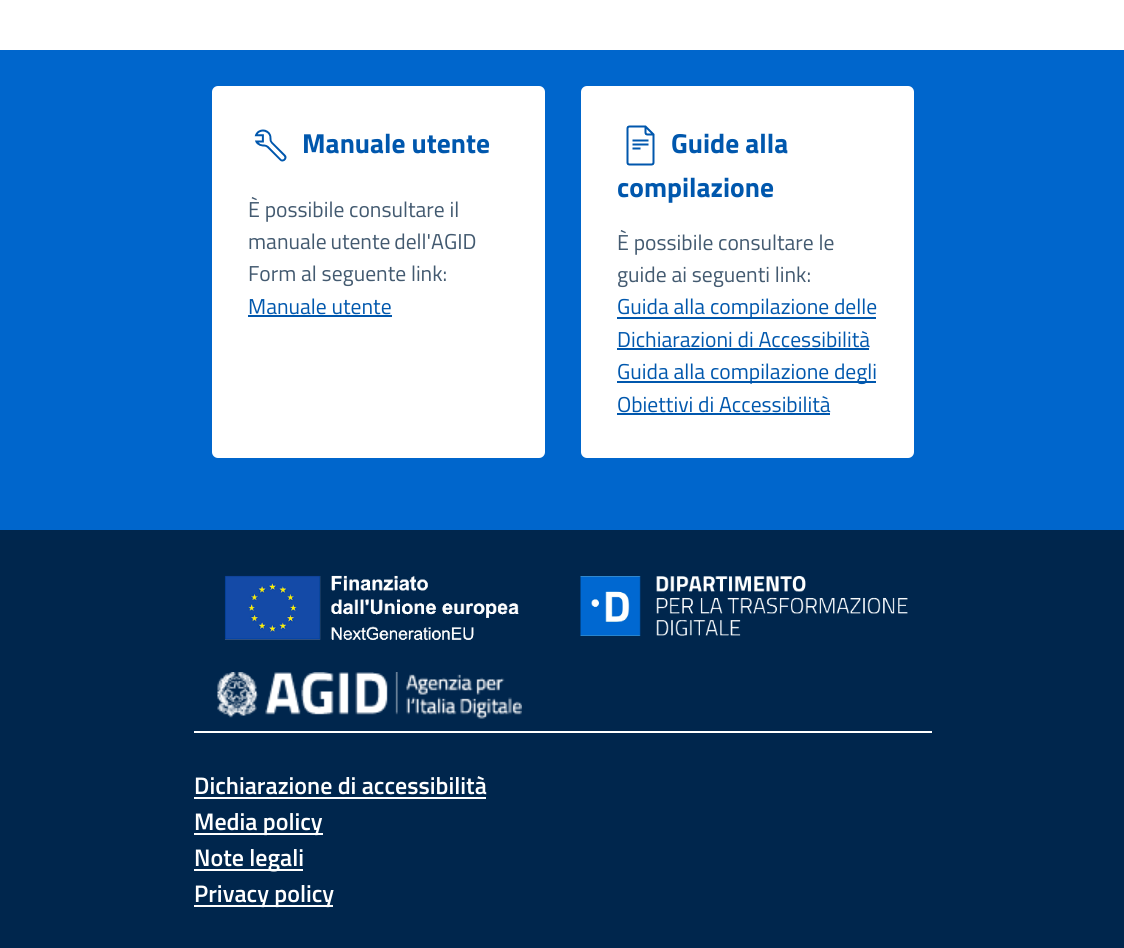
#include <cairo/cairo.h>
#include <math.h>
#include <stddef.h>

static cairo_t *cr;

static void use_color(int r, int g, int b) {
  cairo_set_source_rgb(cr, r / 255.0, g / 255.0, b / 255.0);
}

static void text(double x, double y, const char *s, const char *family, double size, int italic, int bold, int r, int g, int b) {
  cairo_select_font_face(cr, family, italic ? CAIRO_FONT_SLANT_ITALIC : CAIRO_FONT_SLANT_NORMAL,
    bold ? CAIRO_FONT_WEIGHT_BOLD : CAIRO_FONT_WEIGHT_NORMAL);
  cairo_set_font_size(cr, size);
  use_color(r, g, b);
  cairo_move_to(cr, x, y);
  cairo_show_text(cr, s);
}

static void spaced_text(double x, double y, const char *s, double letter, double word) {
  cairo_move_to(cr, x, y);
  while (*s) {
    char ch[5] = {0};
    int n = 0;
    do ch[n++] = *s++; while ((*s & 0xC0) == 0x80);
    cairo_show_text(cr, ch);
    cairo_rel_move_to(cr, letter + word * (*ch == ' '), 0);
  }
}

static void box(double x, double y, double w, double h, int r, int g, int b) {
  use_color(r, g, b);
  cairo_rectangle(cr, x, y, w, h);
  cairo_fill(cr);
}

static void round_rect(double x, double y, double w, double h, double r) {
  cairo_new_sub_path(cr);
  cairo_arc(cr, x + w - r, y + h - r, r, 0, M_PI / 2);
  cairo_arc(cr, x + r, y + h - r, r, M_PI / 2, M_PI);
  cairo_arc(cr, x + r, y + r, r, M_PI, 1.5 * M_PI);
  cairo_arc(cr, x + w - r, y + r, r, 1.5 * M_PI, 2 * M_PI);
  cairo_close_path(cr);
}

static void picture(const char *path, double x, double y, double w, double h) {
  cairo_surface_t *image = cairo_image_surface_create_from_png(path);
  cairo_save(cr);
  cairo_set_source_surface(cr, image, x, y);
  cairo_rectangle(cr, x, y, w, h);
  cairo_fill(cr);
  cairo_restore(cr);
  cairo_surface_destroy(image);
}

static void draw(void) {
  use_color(255, 255, 255);
  cairo_paint(cr);
  box(0, 50, 1124, 480, 0, 102, 204);
  use_color(255, 255, 255);
  round_rect(212, 86, 333, 372, 6);
  cairo_fill(cr);
  picture("img_01.png", 254, 129, 33, 33);
  box(248, 315, 144, 2, 0, 87, 173);
  use_color(255, 255, 255);
  round_rect(581, 86, 333, 372, 6);
  cairo_fill(cr);
  picture("img_02.png", 626, 125, 29, 41);
  box(617, 317, 259, 2, 0, 87, 173);
  box(617, 348, 252, 2, 0, 87, 173);
  box(617, 381, 259, 2, 0, 87, 173);
  box(617, 413, 213, 2, 0, 87, 173);
  box(0, 530, 1124, 418, 0, 38, 77);
  picture("img_03.png", 224, 575, 295, 65);
  picture("img_04.png", 580, 576, 328, 60);
  picture("img_05.png", 217, 672, 305, 47);
  box(194, 731, 738, 2, 255, 255, 255);
  box(194, 797, 292, 2, 255, 255, 255);
  box(194, 833, 129, 2, 255, 255, 255);
  box(194, 869, 109, 2, 255, 255, 255);
  box(194, 905, 139, 2, 255, 255, 255);
  text(302, 153, "Manuale utente", "Titillium Web", 27.5, 0, 1, 0, 87, 173);
  text(248, 217, "È possibile consultare il", "Titillium Web", 21.6, 0, 0, 67, 90, 112);
  spaced_text(248, 249, "manuale utente dell'AGID", 0, -1);
  text(248, 281, "Form al seguente link:", "Titillium Web", 21.6, 0, 0, 67, 90, 112);
  text(248, 314, "Manuale utente", "Titillium Web", 21.6, 0, 0, 0, 87, 173);
  text(671, 153, "Guide alla", "Titillium Web", 27.5, 0, 1, 0, 87, 173);
  text(617, 197, "compilazione", "Titillium Web", 27.5, 0, 1, 0, 87, 173);
  text(617, 250, "È possibile consultare le", "Titillium Web", 21.6, 0, 0, 67, 90, 112);
  text(617, 282, "guide ai seguenti link:", "Titillium Web", 21.6, 0, 0, 67, 90, 112);
  text(617, 314, "Guida alla compilazione delle", "Titillium Web", 21.6, 0, 0, 0, 87, 173);
  text(617, 347, "Dichiarazioni di Accessibilità", "Titillium Web", 21.6, 0, 0, 0, 87, 173);
  text(617, 379, "Guida alla compilazione degli", "Titillium Web", 21.6, 0, 0, 0, 87, 173);
  text(617, 412, "Obiettivi di Accessibilità", "Titillium Web", 21.6, 0, 0, 0, 87, 173);
  text(194, 794, "Dichiarazione di accessibilità", "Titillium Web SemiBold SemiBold", 24, 0, 0, 255, 255, 255);
  text(194, 830, "Media policy", "Titillium Web SemiBold SemiBold", 24, 0, 0, 255, 255, 255);
  text(194, 866, "Note legali", "Titillium Web SemiBold SemiBold", 24, 0, 0, 255, 255, 255);
  text(194, 902, "Privacy policy", "Titillium Web SemiBold SemiBold", 24, 0, 0, 255, 255, 255);
}

int main(void) {
  cairo_surface_t *surface = cairo_image_surface_create(CAIRO_FORMAT_RGB24, 1124, 948);
  cr = cairo_create(surface);
  cairo_font_options_t *options = cairo_font_options_create();
  cairo_font_options_set_hint_metrics(options, CAIRO_HINT_METRICS_OFF);
  cairo_font_options_set_hint_style(options, CAIRO_HINT_STYLE_NONE);
  cairo_set_font_options(cr, options);
  cairo_set_miter_limit(cr, 4);
  draw();
  cairo_surface_write_to_png(surface, "out.png");
  cairo_font_options_destroy(options);
  cairo_destroy(cr);
  cairo_surface_destroy(surface);
  return 0;
}
